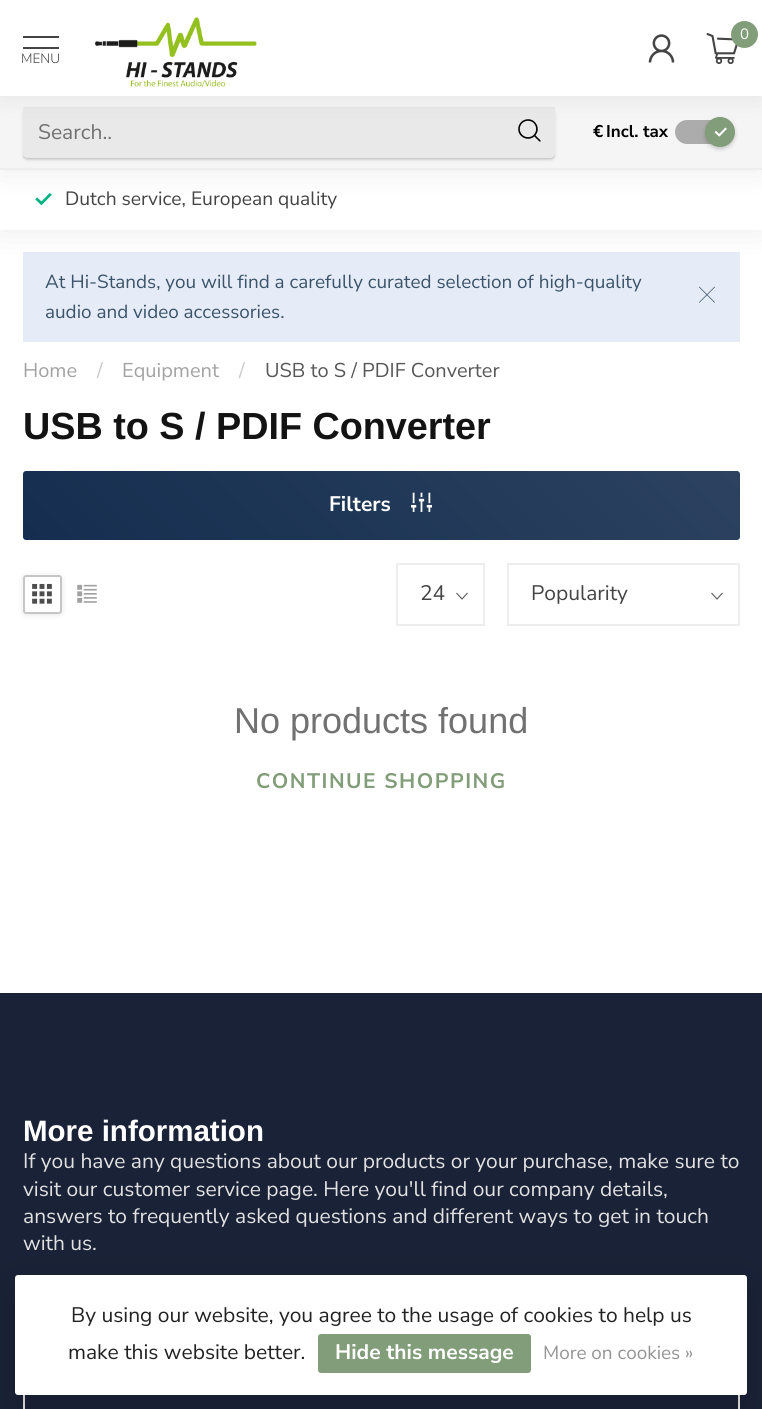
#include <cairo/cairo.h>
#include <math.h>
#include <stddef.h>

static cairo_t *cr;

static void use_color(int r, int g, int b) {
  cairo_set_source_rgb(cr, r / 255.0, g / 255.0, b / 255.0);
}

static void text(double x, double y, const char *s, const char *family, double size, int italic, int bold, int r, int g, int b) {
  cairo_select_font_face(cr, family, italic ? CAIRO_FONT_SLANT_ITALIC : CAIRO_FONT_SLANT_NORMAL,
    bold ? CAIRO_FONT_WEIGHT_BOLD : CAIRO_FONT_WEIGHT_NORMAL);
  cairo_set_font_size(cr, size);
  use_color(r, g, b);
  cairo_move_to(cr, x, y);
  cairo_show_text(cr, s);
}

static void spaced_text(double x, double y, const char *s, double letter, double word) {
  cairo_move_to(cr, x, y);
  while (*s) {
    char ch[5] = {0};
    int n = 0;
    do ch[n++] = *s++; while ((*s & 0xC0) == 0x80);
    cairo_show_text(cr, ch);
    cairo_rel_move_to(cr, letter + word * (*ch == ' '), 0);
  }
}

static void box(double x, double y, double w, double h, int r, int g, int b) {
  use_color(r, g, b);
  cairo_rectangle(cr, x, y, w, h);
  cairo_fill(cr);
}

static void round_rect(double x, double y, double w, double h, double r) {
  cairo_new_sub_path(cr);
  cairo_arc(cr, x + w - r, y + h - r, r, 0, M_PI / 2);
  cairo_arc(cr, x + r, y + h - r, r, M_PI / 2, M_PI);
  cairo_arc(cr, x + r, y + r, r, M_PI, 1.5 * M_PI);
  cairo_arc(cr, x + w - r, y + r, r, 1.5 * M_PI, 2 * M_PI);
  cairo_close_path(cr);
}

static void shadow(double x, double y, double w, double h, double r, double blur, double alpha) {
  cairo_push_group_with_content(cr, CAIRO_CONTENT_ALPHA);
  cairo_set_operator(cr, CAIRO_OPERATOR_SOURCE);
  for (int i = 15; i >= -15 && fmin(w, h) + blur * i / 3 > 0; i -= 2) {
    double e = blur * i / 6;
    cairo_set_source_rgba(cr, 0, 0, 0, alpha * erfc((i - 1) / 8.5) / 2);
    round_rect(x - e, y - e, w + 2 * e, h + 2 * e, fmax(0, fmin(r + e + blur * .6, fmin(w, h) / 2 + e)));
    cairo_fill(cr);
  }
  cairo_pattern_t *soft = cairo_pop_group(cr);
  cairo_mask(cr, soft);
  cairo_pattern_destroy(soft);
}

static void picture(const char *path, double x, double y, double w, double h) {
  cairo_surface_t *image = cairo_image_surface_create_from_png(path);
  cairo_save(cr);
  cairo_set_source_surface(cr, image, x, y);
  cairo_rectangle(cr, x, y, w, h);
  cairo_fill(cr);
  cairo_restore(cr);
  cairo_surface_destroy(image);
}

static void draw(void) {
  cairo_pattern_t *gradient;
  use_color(255, 255, 255);
  cairo_paint(cr);
  box(23, 252, 717, 90, 230, 236, 247);
  use_color(0, 0, 0);
  shadow(0, 170, 762, 60, 0, 16.5, 0.08);
  box(0, 170, 762, 60, 255, 255, 255);
  picture("img_06.png", 35, 193, 17, 13);
  use_color(0, 0, 0);
  shadow(0, 96, 762, 74, 0, 16.5, 0.08);
  box(0, 96, 762, 72, 245, 245, 245);
  cairo_save(cr);
  cairo_set_fill_rule(cr, CAIRO_FILL_RULE_EVEN_ODD);
  cairo_new_path(cr);
  cairo_move_to(cr, 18, 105);
  cairo_line_to(cr, 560, 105);
  cairo_line_to(cr, 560, 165);
  cairo_line_to(cr, 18, 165);
  cairo_close_path(cr);
  cairo_move_to(cr, 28, 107);
  cairo_line_to(cr, 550, 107);
  cairo_curve_to(cr, 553, 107, 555, 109, 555, 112);
  cairo_line_to(cr, 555, 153);
  cairo_curve_to(cr, 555, 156, 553, 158, 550, 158);
  cairo_line_to(cr, 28, 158);
  cairo_curve_to(cr, 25, 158, 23, 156, 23, 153);
  cairo_line_to(cr, 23, 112);
  cairo_curve_to(cr, 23, 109, 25, 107, 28, 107);
  cairo_close_path(cr);
  cairo_clip(cr);
  use_color(155, 155, 155);
  shadow(24, 111, 530, 48, 3, 1.5, 0.75);
  cairo_restore(cr);
  cairo_set_source_rgba(cr, 0, 0, 0, 0.05);
  cairo_rectangle(cr, 23, 107, 532, 51);
  cairo_fill(cr);
  picture("img_04.png", 518, 119, 23, 23);
  use_color(172, 172, 172);
  round_rect(675, 120, 57, 24, 12);
  cairo_fill(cr);
  use_color(0, 0, 0);
  shadow(705, 119, 30, 30, 15, 2, 0.2);
  use_color(130, 157, 121);
  cairo_arc(cr, 720, 132, 15, 0, 2 * M_PI);
  cairo_fill(cr);
  picture("img_05.png", 714, 127, 13, 10);
  use_color(0, 0, 0);
  shadow(0, 0, 762, 96, 0, 15, 0.07);
  box(0, 0, 762, 96, 255, 255, 255);
  picture("img_01.png", 648, 34, 27, 29);
  picture("img_02.png", 706, 33, 32, 31);
  use_color(130, 157, 121);
  cairo_arc(cr, 744.5, 34.5, 13.5, 0, 2 * M_PI);
  cairo_fill(cr);
  box(23, 36, 36, 2, 68, 68, 68);
  box(23, 47, 36, 2, 68, 68, 68);
  picture("img_03.png", 94, 17, 163, 70);
  box(0, 168, 762, 2, 238, 238, 238);
  picture("img_07.png", 699, 286, 16, 17);
  gradient = cairo_pattern_create_linear(185, 702, 578, 309);
  cairo_pattern_add_color_stop_rgba(gradient, 0, 0.082, 0.18, 0.31, 1);
  cairo_pattern_add_color_stop_rgba(gradient, 1, 0.173, 0.259, 0.376, 1);
  cairo_set_source(cr, gradient);
  cairo_pattern_destroy(gradient);
  round_rect(23, 471, 717, 69, 3);
  cairo_fill(cr);
  picture("img_08.png", 411, 492, 21, 20);
  cairo_save(cr);
  cairo_set_fill_rule(cr, CAIRO_FILL_RULE_EVEN_ODD);
  cairo_new_path(cr);
  cairo_move_to(cr, 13, 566);
  cairo_line_to(cr, 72, 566);
  cairo_line_to(cr, 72, 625);
  cairo_line_to(cr, 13, 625);
  cairo_close_path(cr);
  cairo_move_to(cr, 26, 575);
  cairo_line_to(cr, 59, 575);
  cairo_curve_to(cr, 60.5, 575, 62, 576.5, 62, 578);
  cairo_line_to(cr, 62, 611);
  cairo_curve_to(cr, 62, 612.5, 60.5, 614, 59, 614);
  cairo_line_to(cr, 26, 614);
  cairo_curve_to(cr, 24.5, 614, 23, 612.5, 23, 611);
  cairo_line_to(cr, 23, 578);
  cairo_curve_to(cr, 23, 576.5, 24.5, 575, 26, 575);
  cairo_close_path(cr);
  cairo_clip(cr);
  use_color(0, 0, 0);
  shadow(23, 576, 39, 39, 3, 3, 0.1);
  cairo_restore(cr);
  round_rect(24, 576, 37, 37, 2);
  use_color(198, 198, 198);
  cairo_stroke(cr);
  picture("img_09.png", 32, 583, 20, 21);
  picture("img_10.png", 77, 584, 20, 19);
  cairo_new_path(cr);
  cairo_move_to(cr, 467.5, 593);
  cairo_line_to(cr, 462, 599);
  cairo_line_to(cr, 456.5, 593);
  use_color(89, 89, 89);
  cairo_set_line_width(cr, 1.1);
  cairo_stroke(cr);
  cairo_rectangle(cr, 397, 564, 87, 61);
  use_color(238, 238, 238);
  cairo_set_line_width(cr, 2);
  cairo_stroke(cr);
  cairo_new_path(cr);
  cairo_move_to(cr, 722.5, 593);
  cairo_line_to(cr, 717, 599);
  cairo_line_to(cr, 711.5, 593);
  use_color(89, 89, 89);
  cairo_set_line_width(cr, 1.1);
  cairo_stroke(cr);
  cairo_rectangle(cr, 508, 564, 231, 61);
  use_color(238, 238, 238);
  cairo_set_line_width(cr, 2);
  cairo_stroke(cr);
  box(0, 993, 762, 416, 26, 34, 55);
  cairo_rectangle(cr, 24, 1380, 715, 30);
  use_color(225, 225, 225);
  cairo_stroke(cr);
  use_color(0, 0, 0);
  shadow(15, 1290, 732, 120, 3, 22.5, 0.15);
  use_color(255, 255, 255);
  round_rect(15, 1275, 732, 120, 3);
  cairo_fill(cr);
  use_color(130, 157, 121);
  round_rect(318, 1334, 213, 39, 3);
  cairo_fill(cr);
  text(740, 39, "0", "Nunito Sans", 15, 0, 0, 255, 255, 255);
  text(21, 63, "MENU", "Nunito Sans Light", 13.5, 0, 0, 68, 68, 68);
  text(38, 139, "Search..", "Nunito Sans", 21, 0, 0, 113, 113, 113);
  text(593, 137, "€", "Nunito Sans", 17, 0, 1, 0, 0, 0);
  text(606, 137, "Incl. tax", "Nunito Sans", 17, 0, 1, 0, 0, 0);
  text(65, 205, "Dutch service, European quality", "Nunito Sans", 19.25, 0, 0, 68, 68, 68);
  text(45, 288, "At Hi-Stands, you will find a carefully curated selection of high-quality", "Nunito Sans", 18.9, 0, 0, 59, 84, 105);
  text(45, 318, "audio and video accessories.", "Nunito Sans", 18.9, 0, 0, 59, 84, 105);
  text(23, 377, "Home", "Nunito Sans", 20, 0, 0, 162, 162, 162);
  text(97, 377, "/", "Nunito Sans", 20, 0, 0, 199, 199, 199);
  text(122, 377, "Equipment", "Nunito Sans", 20, 0, 0, 162, 162, 162);
  text(239, 377, "/", "Nunito Sans", 20, 0, 0, 199, 199, 199);
  text(265, 377, "USB to S / PDIF Converter", "Nunito Sans", 20, 0, 0, 87, 87, 87);
  text(23, 439, "USB to S / PDIF Converter", "Arimo", 37.75, 0, 1, 19, 19, 19);
  text(329, 511, "Filters", "Nunito Sans", 21, 0, 1, 255, 255, 255);
  text(420, 600, "24", "Nunito Sans", 21, 0, 0, 68, 68, 68);
  text(531, 600, "Popularity", "Nunito Sans", 21, 0, 0, 68, 68, 68);
  text(234, 733, "No products found", "Arimo", 36, 0, 0, 113, 113, 113);
  cairo_select_font_face(cr, "Nunito Sans", CAIRO_FONT_SLANT_NORMAL, CAIRO_FONT_WEIGHT_BOLD);
  cairo_set_font_size(cr, 21);
  use_color(130, 157, 121);
  spaced_text(256, 788, "CONTINUE SHOPPING", 1.5, 0);
  text(23, 1141, "More information", "Arimo", 29.5, 0, 1, 255, 255, 255);
  text(23, 1168, "If you have any questions about our products or your purchase, make sure to", "Nunito Sans", 21, 0, 0, 225, 225, 225);
  text(23, 1196, "visit our customer service page. Here you'll find our company details,", "Nunito Sans", 21, 0, 0, 225, 225, 225);
  text(23, 1223, "answers to frequently asked questions and different ways to get in touch", "Nunito Sans", 21, 0, 0, 225, 225, 225);
  text(23, 1250, "with us.", "Nunito Sans", 21, 0, 0, 225, 225, 225);
  text(71, 1322, "By using our website, you agree to the usage of cookies to help us", "Nunito Sans", 21, 0, 0, 34, 34, 34);
  text(68, 1359, "make this website better.", "Nunito Sans", 21, 0, 0, 34, 34, 34);
  text(335, 1359, "Hide this message", "Nunito Sans", 21, 0, 1, 255, 255, 255);
  text(543, 1359, "More on cookies »", "Nunito Sans", 18.9, 0, 0, 148, 148, 148);
}

int main(void) {
  cairo_surface_t *surface = cairo_image_surface_create(CAIRO_FORMAT_RGB24, 762, 1409);
  cr = cairo_create(surface);
  cairo_font_options_t *options = cairo_font_options_create();
  cairo_font_options_set_hint_metrics(options, CAIRO_HINT_METRICS_OFF);
  cairo_font_options_set_hint_style(options, CAIRO_HINT_STYLE_NONE);
  cairo_set_font_options(cr, options);
  cairo_set_miter_limit(cr, 4);
  draw();
  cairo_surface_write_to_png(surface, "out.png");
  cairo_font_options_destroy(options);
  cairo_destroy(cr);
  cairo_surface_destroy(surface);
  return 0;
}
